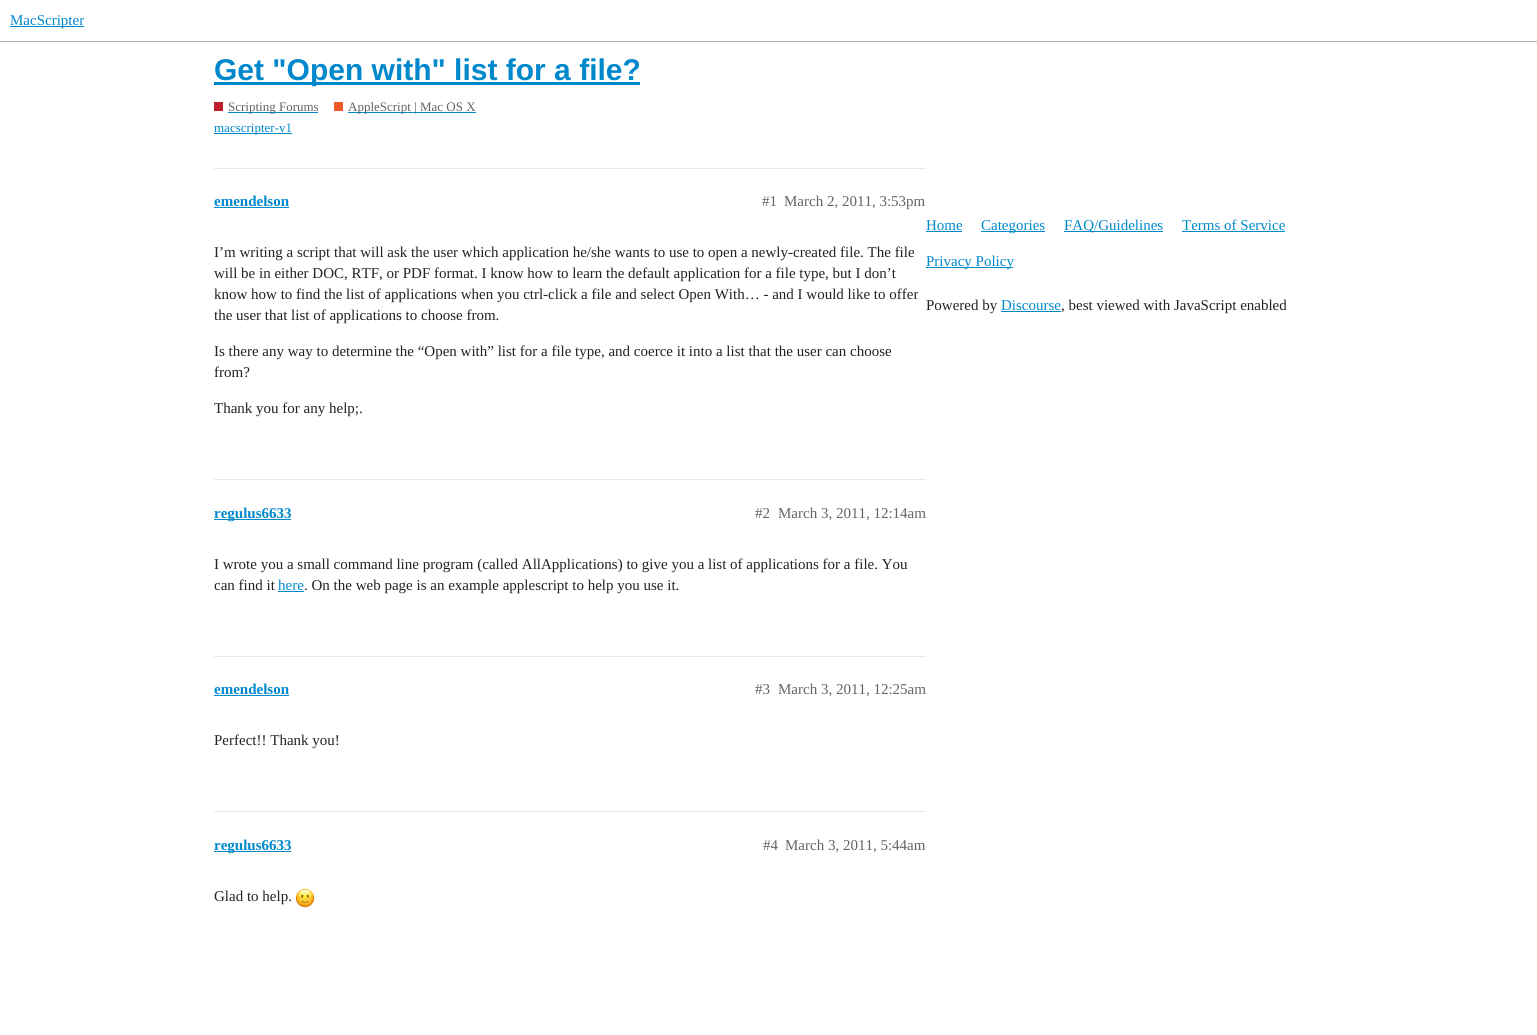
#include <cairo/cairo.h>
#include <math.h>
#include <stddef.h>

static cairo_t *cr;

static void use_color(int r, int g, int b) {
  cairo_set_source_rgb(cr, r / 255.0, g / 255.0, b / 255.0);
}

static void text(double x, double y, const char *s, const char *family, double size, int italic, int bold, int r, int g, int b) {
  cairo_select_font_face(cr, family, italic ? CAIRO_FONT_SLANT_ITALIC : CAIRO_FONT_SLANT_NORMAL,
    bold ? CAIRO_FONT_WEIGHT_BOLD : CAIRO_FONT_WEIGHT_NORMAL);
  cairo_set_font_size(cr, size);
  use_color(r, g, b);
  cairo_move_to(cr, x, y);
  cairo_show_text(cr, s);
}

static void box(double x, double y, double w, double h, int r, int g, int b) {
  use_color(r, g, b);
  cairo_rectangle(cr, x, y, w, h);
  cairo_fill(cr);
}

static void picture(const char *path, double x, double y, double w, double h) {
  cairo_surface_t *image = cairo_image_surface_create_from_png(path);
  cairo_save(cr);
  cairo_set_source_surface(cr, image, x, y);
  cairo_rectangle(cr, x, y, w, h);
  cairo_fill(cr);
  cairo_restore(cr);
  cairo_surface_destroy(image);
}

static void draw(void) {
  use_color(255, 255, 255);
  cairo_paint(cr);
  box(0, 41, 1537, 1, 175, 175, 175);
  box(10, 26, 74, 1, 0, 136, 204);
  box(214, 82, 426, 3, 0, 136, 204);
  box(214, 102, 9, 9, 191, 30, 46);
  box(228, 112, 90, 1, 0, 136, 204);
  box(334, 102, 9, 9, 241, 89, 42);
  box(348, 112, 128, 1, 0, 136, 204);
  box(214, 133, 78, 1, 0, 136, 204);
  box(214, 168, 712, 1, 233, 233, 233);
  box(214, 207, 75, 1, 0, 136, 204);
  box(214, 479, 712, 1, 233, 233, 233);
  box(214, 519, 77, 1, 0, 136, 204);
  box(278, 591, 26, 1, 0, 136, 204);
  box(214, 656, 712, 1, 233, 233, 233);
  box(214, 695, 75, 1, 0, 136, 204);
  box(214, 811, 712, 1, 233, 233, 233);
  box(214, 851, 77, 1, 0, 136, 204);
  picture("img_01.png", 295, 888, 20, 20);
  box(926, 231, 36, 1, 0, 136, 204);
  box(981, 231, 64, 1, 0, 136, 204);
  box(1064, 231, 99, 1, 0, 136, 204);
  box(1182, 231, 103, 1, 0, 136, 204);
  box(926, 267, 87, 1, 0, 136, 204);
  box(1001, 311, 60, 1, 0, 136, 204);
  text(10, 25, "MacScripter", "Liberation Serif", 15, 0, 0, 0, 136, 204);
  text(214, 80, "Get \"Open with\" list for a file?", "Liberation Sans", 30, 0, 1, 0, 136, 204);
  text(228, 111, "Scripting Forums", "Liberation Serif", 13, 0, 0, 100, 100, 100);
  text(348, 111, "AppleScript | Mac OS X", "Liberation Serif", 13, 0, 0, 100, 100, 100);
  text(214, 132, "macscripter-v1", "Liberation Serif", 13, 0, 0, 0, 136, 204);
  text(214, 206, "emendelson", "Liberation Serif", 15, 0, 1, 0, 136, 204);
  text(762, 206, "#1", "Liberation Serif", 15, 0, 0, 100, 100, 100);
  text(784, 206, "March 2, 2011, 3:53pm", "Liberation Serif", 15, 0, 0, 100, 100, 100);
  text(214, 257, "I’m writing a script that will ask the user which application he/she wants to use to open a newly-created file. The file", "Liberation Serif", 15, 0, 0, 34, 34, 34);
  text(214, 278, "will be in either DOC, RTF, or PDF format. I know how to learn the default application for a file type, but I don’t", "Liberation Serif", 15, 0, 0, 34, 34, 34);
  text(214, 299, "know how to find the list of applications when you ctrl-click a file and select Open With… - and I would like to offer", "Liberation Serif", 15, 0, 0, 34, 34, 34);
  text(214, 320, "the user that list of applications to choose from.", "Liberation Serif", 15, 0, 0, 34, 34, 34);
  text(214, 356, "Is there any way to determine the “Open with” list for a file type, and coerce it into a list that the user can choose", "Liberation Serif", 15, 0, 0, 34, 34, 34);
  text(214, 377, "from?", "Liberation Serif", 15, 0, 0, 34, 34, 34);
  cairo_save(cr);
  cairo_rectangle(cr, 214, 227, 712, 207);
  cairo_clip(cr);
  text(214, 413, "Thank you for any help;.", "Liberation Serif", 15, 0, 0, 34, 34, 34);
  cairo_restore(cr);
  text(214, 518, "regulus6633", "Liberation Serif", 15, 0, 1, 0, 136, 204);
  text(755, 518, "#2", "Liberation Serif", 15, 0, 0, 100, 100, 100);
  text(778, 518, "March 3, 2011, 12:14am", "Liberation Serif", 15, 0, 0, 100, 100, 100);
  text(214, 569, "I wrote you a small command line program (called AllApplications) to give you a list of applications for a file. You", "Liberation Serif", 15, 0, 0, 34, 34, 34);
  text(214, 590, "can find it", "Liberation Serif", 15, 0, 0, 34, 34, 34);
  text(278, 590, "here", "Liberation Serif", 15, 0, 0, 0, 136, 204);
  text(304, 590, ". On the web page is an example applescript to help you use it.", "Liberation Serif", 15, 0, 0, 34, 34, 34);
  text(214, 694, "emendelson", "Liberation Serif", 15, 0, 1, 0, 136, 204);
  text(755, 694, "#3", "Liberation Serif", 15, 0, 0, 100, 100, 100);
  text(778, 694, "March 3, 2011, 12:25am", "Liberation Serif", 15, 0, 0, 100, 100, 100);
  text(214, 745, "Perfect!! Thank you!", "Liberation Serif", 15, 0, 0, 34, 34, 34);
  text(214, 850, "regulus6633", "Liberation Serif", 15, 0, 1, 0, 136, 204);
  text(763, 850, "#4", "Liberation Serif", 15, 0, 0, 100, 100, 100);
  text(785, 850, "March 3, 2011, 5:44am", "Liberation Serif", 15, 0, 0, 100, 100, 100);
  text(214, 901, "Glad to help.", "Liberation Serif", 15, 0, 0, 34, 34, 34);
  text(926, 230, "Home", "Liberation Serif", 15, 0, 0, 0, 136, 204);
  text(981, 230, "Categories", "Liberation Serif", 15, 0, 0, 0, 136, 204);
  text(1064, 230, "FAQ/Guidelines", "Liberation Serif", 15, 0, 0, 0, 136, 204);
  text(1182, 230, "Terms of Service", "Liberation Serif", 15, 0, 0, 0, 136, 204);
  text(926, 266, "Privacy Policy", "Liberation Serif", 15, 0, 0, 0, 136, 204);
  text(926, 310, "Powered by", "Liberation Serif", 15, 0, 0, 34, 34, 34);
  text(1001, 310, "Discourse", "Liberation Serif", 15, 0, 0, 0, 136, 204);
  text(1061, 310, ", best viewed with JavaScript enabled", "Liberation Serif", 15, 0, 0, 34, 34, 34);
}

int main(void) {
  cairo_surface_t *surface = cairo_image_surface_create(CAIRO_FORMAT_RGB24, 1537, 1035);
  cr = cairo_create(surface);
  cairo_font_options_t *options = cairo_font_options_create();
  cairo_font_options_set_hint_metrics(options, CAIRO_HINT_METRICS_OFF);
  cairo_font_options_set_hint_style(options, CAIRO_HINT_STYLE_NONE);
  cairo_set_font_options(cr, options);
  cairo_set_miter_limit(cr, 4);
  draw();
  cairo_surface_write_to_png(surface, "out.png");
  cairo_font_options_destroy(options);
  cairo_destroy(cr);
  cairo_surface_destroy(surface);
  return 0;
}
